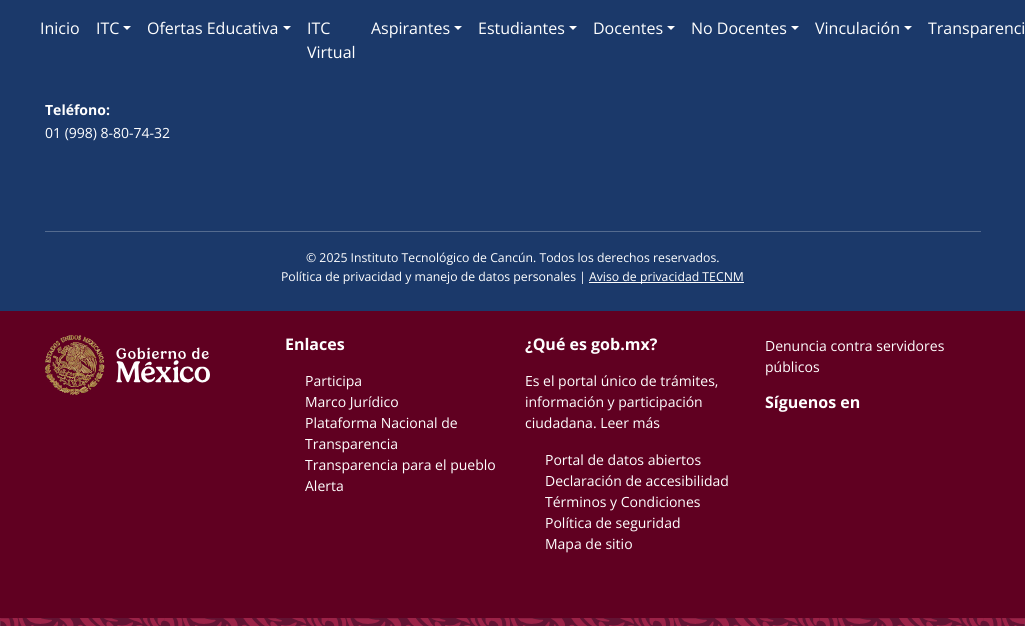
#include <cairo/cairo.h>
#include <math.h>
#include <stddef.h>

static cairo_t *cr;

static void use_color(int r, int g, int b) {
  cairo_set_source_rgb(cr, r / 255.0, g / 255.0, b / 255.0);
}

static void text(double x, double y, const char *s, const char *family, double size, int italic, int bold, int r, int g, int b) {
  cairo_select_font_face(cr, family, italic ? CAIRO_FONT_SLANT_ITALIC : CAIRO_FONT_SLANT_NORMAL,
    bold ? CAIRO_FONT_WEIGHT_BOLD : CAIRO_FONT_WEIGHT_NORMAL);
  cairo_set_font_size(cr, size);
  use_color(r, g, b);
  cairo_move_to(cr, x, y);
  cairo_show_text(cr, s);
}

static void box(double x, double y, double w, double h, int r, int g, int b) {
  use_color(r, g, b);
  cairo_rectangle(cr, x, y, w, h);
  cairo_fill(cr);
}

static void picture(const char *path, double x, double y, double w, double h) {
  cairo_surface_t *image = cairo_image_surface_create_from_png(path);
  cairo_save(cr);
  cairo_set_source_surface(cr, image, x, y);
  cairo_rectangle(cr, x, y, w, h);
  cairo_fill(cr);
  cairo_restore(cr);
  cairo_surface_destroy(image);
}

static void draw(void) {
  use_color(255, 255, 255);
  cairo_paint(cr);
  box(0, 0, 1025, 311, 27, 57, 106);
  use_color(255, 255, 255);
  cairo_new_path(cr);
  cairo_move_to(cr, 123, 26);
  cairo_line_to(cr, 131, 26);
  cairo_line_to(cr, 127, 30);
  cairo_close_path(cr);
  cairo_fill(cr);
  cairo_new_path(cr);
  cairo_move_to(cr, 283, 26);
  cairo_line_to(cr, 291, 26);
  cairo_line_to(cr, 287, 30);
  cairo_close_path(cr);
  cairo_fill(cr);
  cairo_new_path(cr);
  cairo_move_to(cr, 454, 26);
  cairo_line_to(cr, 462, 26);
  cairo_line_to(cr, 458, 30);
  cairo_close_path(cr);
  cairo_fill(cr);
  cairo_new_path(cr);
  cairo_move_to(cr, 569, 26);
  cairo_line_to(cr, 577, 26);
  cairo_line_to(cr, 573, 30);
  cairo_close_path(cr);
  cairo_fill(cr);
  cairo_new_path(cr);
  cairo_move_to(cr, 667, 26);
  cairo_line_to(cr, 675, 26);
  cairo_line_to(cr, 671, 30);
  cairo_close_path(cr);
  cairo_fill(cr);
  cairo_new_path(cr);
  cairo_move_to(cr, 791, 26);
  cairo_line_to(cr, 799, 26);
  cairo_line_to(cr, 795, 30);
  cairo_close_path(cr);
  cairo_fill(cr);
  cairo_new_path(cr);
  cairo_move_to(cr, 904, 26);
  cairo_line_to(cr, 912, 26);
  cairo_line_to(cr, 908, 30);
  cairo_close_path(cr);
  cairo_fill(cr);
  box(45, 231, 936, 1, 84, 107, 143);
  box(589, 282, 155, 1, 255, 255, 255);
  box(0, 311, 1025, 307, 96, 0, 33);
  picture("img_01.png", 45, 335, 165, 60);
  picture("img_02.png", 0, 618, 1025, 8);
  text(40, 34, "Inicio", "Open Sans", 16, 0, 0, 255, 255, 255);
  text(96, 34, "ITC", "Open Sans", 16, 0, 0, 255, 255, 255);
  text(147, 34, "Ofertas Educativa", "Open Sans", 16, 0, 0, 255, 255, 255);
  text(307, 34, "ITC", "Open Sans", 16, 0, 0, 255, 255, 255);
  text(307, 58, "Virtual", "Open Sans", 16, 0, 0, 255, 255, 255);
  text(371, 34, "Aspirantes", "Open Sans", 16, 0, 0, 255, 255, 255);
  text(478, 34, "Estudiantes", "Open Sans", 16, 0, 0, 255, 255, 255);
  text(593, 34, "Docentes", "Open Sans", 16, 0, 0, 255, 255, 255);
  text(691, 34, "No Docentes", "Open Sans", 16, 0, 0, 255, 255, 255);
  text(815, 34, "Vinculación", "Open Sans", 16, 0, 0, 255, 255, 255);
  text(928, 34, "Transparenci", "Open Sans", 16, 0, 0, 255, 255, 255);
  text(45, 115, "Teléfono:", "Open Sans", 14, 0, 1, 255, 255, 255);
  text(45, 138, "01 (998) 8-80-74-32", "Open Sans", 14, 0, 0, 255, 255, 255);
  text(306, 262, "© 2025 Instituto Tecnológico de Cancún. Todos los derechos reservados.", "Open Sans", 12.25, 0, 0, 255, 255, 255);
  text(281, 281, "Política de privacidad y manejo de datos personales |", "Open Sans", 12.25, 0, 0, 255, 255, 255);
  text(589, 281, "Aviso de privacidad TECNM", "Open Sans", 12.25, 0, 0, 255, 255, 255);
  text(285, 350, "Enlaces", "Open Sans", 16, 0, 1, 255, 255, 255);
  text(305, 386, "Participa", "Open Sans", 14, 0, 0, 255, 255, 255);
  text(305, 407, "Marco Jurídico", "Open Sans", 14, 0, 0, 255, 255, 255);
  text(305, 428, "Plataforma Nacional de", "Open Sans", 14, 0, 0, 255, 255, 255);
  text(305, 449, "Transparencia", "Open Sans", 14, 0, 0, 255, 255, 255);
  text(305, 470, "Transparencia para el pueblo", "Open Sans", 14, 0, 0, 255, 255, 255);
  text(305, 491, "Alerta", "Open Sans", 14, 0, 0, 255, 255, 255);
  text(525, 350, "¿Qué es gob.mx?", "Open Sans", 16, 0, 1, 255, 255, 255);
  text(525, 386, "Es el portal único de trámites,", "Open Sans", 14, 0, 0, 255, 255, 255);
  text(525, 407, "información y participación", "Open Sans", 14, 0, 0, 255, 255, 255);
  text(525, 428, "ciudadana. Leer más", "Open Sans", 14, 0, 0, 255, 255, 255);
  text(545, 465, "Portal de datos abiertos", "Open Sans", 14, 0, 0, 255, 255, 255);
  text(545, 486, "Declaración de accesibilidad", "Open Sans", 14, 0, 0, 255, 255, 255);
  text(545, 507, "Términos y Condiciones", "Open Sans", 14, 0, 0, 255, 255, 255);
  text(545, 528, "Política de seguridad", "Open Sans", 14, 0, 0, 255, 255, 255);
  text(545, 549, "Mapa de sitio", "Open Sans", 14, 0, 0, 255, 255, 255);
  text(765, 351, "Denuncia contra servidores", "Open Sans", 14, 0, 0, 255, 255, 255);
  text(765, 372, "públicos", "Open Sans", 14, 0, 0, 255, 255, 255);
  text(765, 408, "Síguenos en", "Open Sans", 16, 0, 1, 255, 255, 255);
}

int main(void) {
  cairo_surface_t *surface = cairo_image_surface_create(CAIRO_FORMAT_RGB24, 1025, 626);
  cr = cairo_create(surface);
  cairo_font_options_t *options = cairo_font_options_create();
  cairo_font_options_set_hint_metrics(options, CAIRO_HINT_METRICS_OFF);
  cairo_font_options_set_hint_style(options, CAIRO_HINT_STYLE_NONE);
  cairo_set_font_options(cr, options);
  cairo_set_miter_limit(cr, 4);
  draw();
  cairo_surface_write_to_png(surface, "out.png");
  cairo_font_options_destroy(options);
  cairo_destroy(cr);
  cairo_surface_destroy(surface);
  return 0;
}
